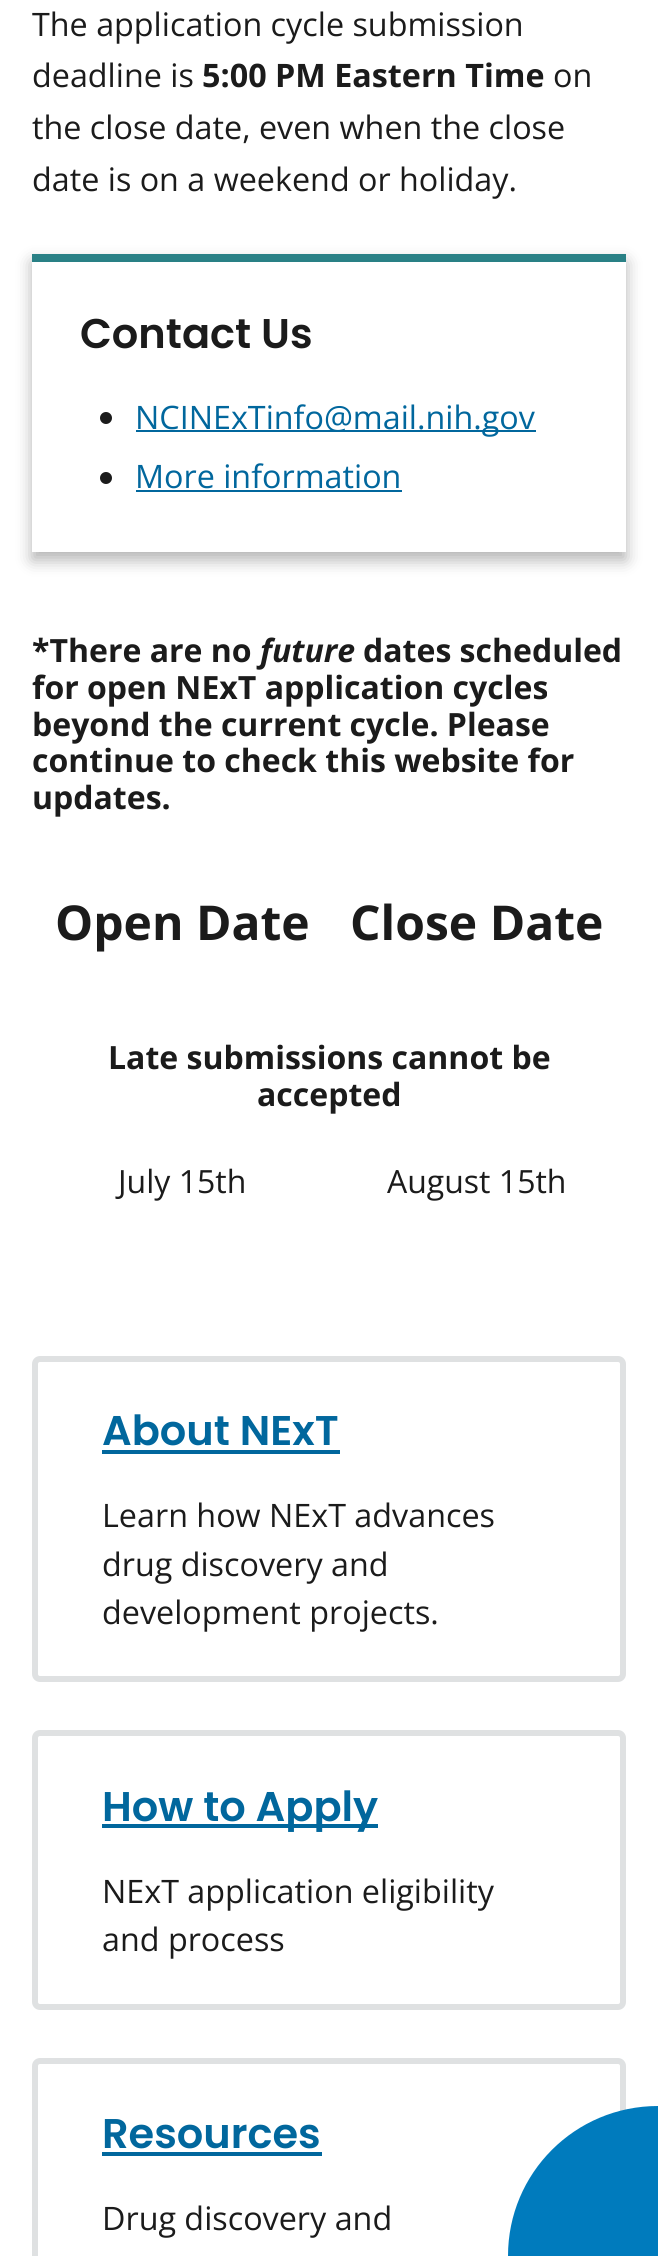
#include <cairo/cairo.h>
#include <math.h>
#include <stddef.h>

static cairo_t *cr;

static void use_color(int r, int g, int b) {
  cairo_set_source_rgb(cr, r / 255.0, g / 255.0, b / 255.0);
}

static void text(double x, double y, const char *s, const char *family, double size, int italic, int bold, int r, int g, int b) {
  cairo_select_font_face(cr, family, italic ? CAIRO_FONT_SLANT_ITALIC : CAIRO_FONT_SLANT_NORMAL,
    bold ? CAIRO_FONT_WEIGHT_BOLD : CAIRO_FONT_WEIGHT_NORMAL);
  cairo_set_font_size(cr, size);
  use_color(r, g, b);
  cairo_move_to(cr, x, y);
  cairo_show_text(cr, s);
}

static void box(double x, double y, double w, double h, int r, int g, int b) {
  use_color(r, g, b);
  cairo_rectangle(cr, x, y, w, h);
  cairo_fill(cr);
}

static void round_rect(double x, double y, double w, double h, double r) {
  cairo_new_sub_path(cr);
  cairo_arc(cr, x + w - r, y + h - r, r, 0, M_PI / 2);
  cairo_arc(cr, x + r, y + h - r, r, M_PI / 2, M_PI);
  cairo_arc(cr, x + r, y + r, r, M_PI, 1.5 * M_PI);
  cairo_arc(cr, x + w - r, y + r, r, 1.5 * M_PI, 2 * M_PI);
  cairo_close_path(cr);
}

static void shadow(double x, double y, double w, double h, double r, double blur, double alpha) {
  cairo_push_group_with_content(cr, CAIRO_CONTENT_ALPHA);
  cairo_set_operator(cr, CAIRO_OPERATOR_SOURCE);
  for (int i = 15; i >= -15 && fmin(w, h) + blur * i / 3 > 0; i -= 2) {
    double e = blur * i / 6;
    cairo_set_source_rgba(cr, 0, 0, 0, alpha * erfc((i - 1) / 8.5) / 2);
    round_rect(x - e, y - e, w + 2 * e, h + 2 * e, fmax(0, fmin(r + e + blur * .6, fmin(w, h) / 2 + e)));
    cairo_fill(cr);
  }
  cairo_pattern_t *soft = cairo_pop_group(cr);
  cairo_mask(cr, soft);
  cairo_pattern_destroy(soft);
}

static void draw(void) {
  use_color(255, 255, 255);
  cairo_paint(cr);
  cairo_save(cr);
  cairo_set_fill_rule(cr, CAIRO_FILL_RULE_EVEN_ODD);
  cairo_new_path(cr);
  cairo_move_to(cr, 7, 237);
  cairo_line_to(cr, 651, 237);
  cairo_line_to(cr, 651, 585);
  cairo_line_to(cr, 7, 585);
  cairo_close_path(cr);
  cairo_move_to(cr, 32, 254);
  cairo_line_to(cr, 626, 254);
  cairo_line_to(cr, 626, 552);
  cairo_line_to(cr, 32, 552);
  cairo_close_path(cr);
  cairo_clip(cr);
  use_color(0, 0, 0);
  shadow(32, 262, 594, 298, 0, 8, 0.3);
  cairo_restore(cr);
  box(32, 254, 594, 8, 41, 128, 133);
  use_color(27, 27, 27);
  cairo_arc(cr, 106, 418, 6, 0, 2 * M_PI);
  cairo_fill(cr);
  box(136, 430, 400, 2, 1, 103, 157);
  use_color(27, 27, 27);
  cairo_arc(cr, 106, 478, 6, 0, 2 * M_PI);
  cairo_fill(cr);
  box(136, 490, 266, 2, 1, 103, 157);
  round_rect(35, 1359, 588, 320, 5);
  use_color(223, 225, 226);
  cairo_set_line_width(cr, 6);
  cairo_stroke(cr);
  box(102, 1450, 238, 4, 1, 103, 157);
  round_rect(35, 1733, 588, 274, 5);
  use_color(223, 225, 226);
  cairo_stroke(cr);
  box(102, 1824, 276, 4, 1, 103, 157);
  round_rect(35, 2061, 588, 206, 5);
  use_color(223, 225, 226);
  cairo_stroke(cr);
  box(102, 2152, 220, 4, 1, 103, 157);
  use_color(0, 123, 189);
  cairo_new_path(cr);
  cairo_move_to(cr, 658, 2106);
  cairo_line_to(cr, 658, 2256);
  cairo_line_to(cr, 508, 2256);
  cairo_curve_to(cr, 508, 2173, 575, 2106, 658, 2106);
  cairo_close_path(cr);
  cairo_fill(cr);
  text(32, 36, "The application cycle submission", "Open Sans", 32.3, 0, 0, 27, 27, 27);
  text(32, 87, "deadline is", "Open Sans", 32.3, 0, 0, 27, 27, 27);
  text(202, 87, "5:00 PM Eastern Time", "Open Sans", 32.3, 0, 1, 27, 27, 27);
  text(553, 87, "on", "Open Sans", 32.3, 0, 0, 27, 27, 27);
  text(32, 139, "the close date, even when the close", "Open Sans", 32.3, 0, 0, 27, 27, 27);
  text(32, 191, "date is on a weekend or holiday.", "Open Sans", 32.3, 0, 0, 27, 27, 27);
  text(80, 348, "Contact Us", "Poppins SemiBold", 41.5, 0, 0, 27, 27, 27);
  text(135, 429, "NCINExTinfo@mail.nih.gov", "Open Sans", 32.3, 0, 0, 1, 103, 157);
  text(135, 488, "More information", "Open Sans", 32.3, 0, 0, 1, 103, 157);
  text(32, 662, "*There are no", "Open Sans", 32, 0, 1, 27, 27, 27);
  text(260, 662, "future", "Open Sans", 32, 1, 1, 27, 27, 27);
  text(363, 662, "dates scheduled", "Open Sans", 32, 0, 1, 27, 27, 27);
  text(32, 699, "for open NExT application cycles", "Open Sans", 32, 0, 1, 27, 27, 27);
  text(32, 736, "beyond the current cycle. Please", "Open Sans", 32, 0, 1, 27, 27, 27);
  text(32, 772, "continue to check this website for", "Open Sans", 32, 0, 1, 27, 27, 27);
  text(32, 809, "updates.", "Open Sans", 32, 0, 1, 27, 27, 27);
  text(55, 940, "Open Date", "Open Sans", 48, 0, 1, 27, 27, 27);
  text(350, 940, "Close Date", "Open Sans", 48, 0, 1, 27, 27, 27);
  text(108, 1069, "Late submissions cannot be", "Open Sans", 32, 0, 1, 27, 27, 27);
  text(257, 1106, "accepted", "Open Sans", 32, 0, 1, 27, 27, 27);
  text(118, 1193, "July 15th", "Open Sans", 32, 0, 0, 27, 27, 27);
  text(387, 1193, "August 15th", "Open Sans", 32, 0, 0, 27, 27, 27);
  text(102, 1445, "About NExT", "Poppins SemiBold", 41.5, 0, 0, 1, 103, 157);
  text(102, 1527, "Learn how NExT advances", "Open Sans", 32.3, 0, 0, 27, 27, 27);
  text(102, 1576, "drug discovery and", "Open Sans", 32.3, 0, 0, 27, 27, 27);
  text(102, 1624, "development projects.", "Open Sans", 32.3, 0, 0, 27, 27, 27);
  text(102, 1821, "How to Apply", "Poppins SemiBold", 41.5, 0, 0, 1, 103, 157);
  text(102, 1903, "NExT application eligibility", "Open Sans", 32.3, 0, 0, 27, 27, 27);
  text(102, 1951, "and process", "Open Sans", 32.3, 0, 0, 27, 27, 27);
  text(102, 2148, "Resources", "Poppins SemiBold", 41.5, 0, 0, 1, 103, 157);
  text(102, 2230, "Drug discovery and", "Open Sans", 32.3, 0, 0, 27, 27, 27);
}

int main(void) {
  cairo_surface_t *surface = cairo_image_surface_create(CAIRO_FORMAT_RGB24, 658, 2256);
  cr = cairo_create(surface);
  cairo_font_options_t *options = cairo_font_options_create();
  cairo_font_options_set_hint_metrics(options, CAIRO_HINT_METRICS_OFF);
  cairo_font_options_set_hint_style(options, CAIRO_HINT_STYLE_NONE);
  cairo_set_font_options(cr, options);
  cairo_set_miter_limit(cr, 4);
  draw();
  cairo_surface_write_to_png(surface, "out.png");
  cairo_font_options_destroy(options);
  cairo_destroy(cr);
  cairo_surface_destroy(surface);
  return 0;
}
